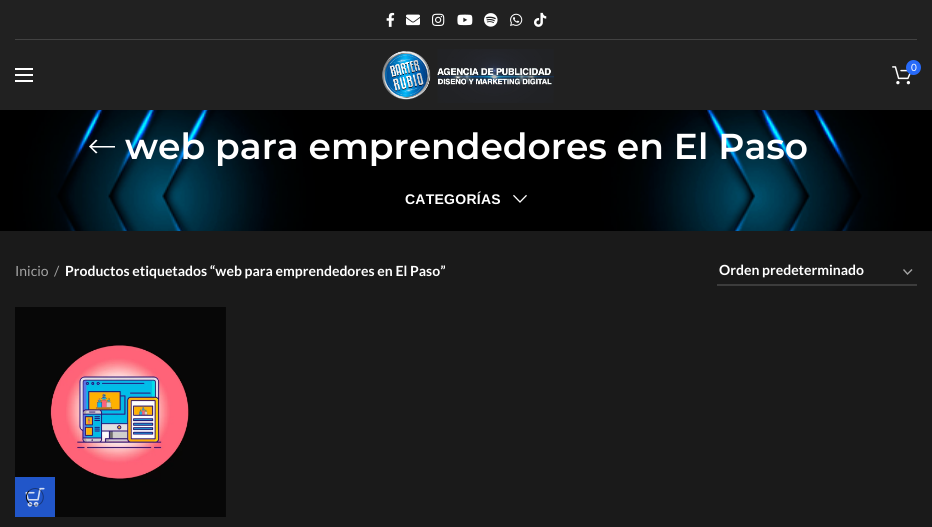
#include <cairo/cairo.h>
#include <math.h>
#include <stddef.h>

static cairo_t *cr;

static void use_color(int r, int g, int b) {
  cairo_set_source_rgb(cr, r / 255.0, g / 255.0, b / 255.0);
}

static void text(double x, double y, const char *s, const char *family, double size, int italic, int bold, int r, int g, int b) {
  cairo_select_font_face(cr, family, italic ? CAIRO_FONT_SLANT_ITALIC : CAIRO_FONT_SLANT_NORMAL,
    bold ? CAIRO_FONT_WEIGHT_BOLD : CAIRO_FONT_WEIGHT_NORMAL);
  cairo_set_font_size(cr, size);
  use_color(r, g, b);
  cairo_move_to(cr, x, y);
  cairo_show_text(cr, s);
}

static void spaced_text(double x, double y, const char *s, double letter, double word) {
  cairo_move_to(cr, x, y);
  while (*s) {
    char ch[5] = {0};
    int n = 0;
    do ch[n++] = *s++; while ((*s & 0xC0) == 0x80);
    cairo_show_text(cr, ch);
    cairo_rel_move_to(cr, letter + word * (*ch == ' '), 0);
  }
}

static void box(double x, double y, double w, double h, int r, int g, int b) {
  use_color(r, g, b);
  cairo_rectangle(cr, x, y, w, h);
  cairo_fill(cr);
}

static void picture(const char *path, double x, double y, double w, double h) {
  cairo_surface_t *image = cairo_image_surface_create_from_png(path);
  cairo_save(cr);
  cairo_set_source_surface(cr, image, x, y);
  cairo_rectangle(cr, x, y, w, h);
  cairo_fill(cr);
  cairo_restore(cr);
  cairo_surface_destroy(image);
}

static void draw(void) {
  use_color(26, 26, 26);
  cairo_paint(cr);
  box(0, 0, 932, 110, 33, 33, 33);
  box(15, 39, 902, 1, 66, 66, 66);
  picture("img_01.png", 386, 12, 9, 15);
  picture("img_02.png", 406, 14, 14, 12);
  picture("img_03.png", 432, 13, 13, 13);
  picture("img_04.png", 457, 14, 16, 12);
  picture("img_05.png", 484, 13, 14, 14);
  picture("img_06.png", 510, 13, 13, 13);
  picture("img_07.png", 534, 12, 13, 15);
  box(15, 74, 18, 2, 255, 255, 255);
  box(15, 68, 18, 2, 255, 255, 255);
  box(15, 80, 18, 2, 255, 255, 255);
  picture("img_08.png", 382, 49, 172, 54);
  picture("img_09.png", 892, 66, 19, 19);
  use_color(39, 106, 249);
  cairo_arc(cr, 913.5, 67.5, 7.5, 0, 2 * M_PI);
  cairo_fill(cr);
  picture("img_10.png", 0, 110, 932, 121);
  use_color(255, 255, 255);
  cairo_new_path(cr);
  cairo_move_to(cr, 115, 146);
  cairo_line_to(cr, 115, 147.5);
  cairo_line_to(cr, 92, 147.5);
  cairo_line_to(cr, 97.5, 152.5);
  cairo_line_to(cr, 96, 153.5);
  cairo_line_to(cr, 89, 146.5);
  cairo_line_to(cr, 96, 139.5);
  cairo_line_to(cr, 97.5, 140.5);
  cairo_line_to(cr, 92, 146);
  cairo_close_path(cr);
  cairo_fill(cr);
  picture("img_11.png", 513, 194, 14, 9);
  cairo_new_path(cr);
  cairo_move_to(cr, 903.5, 269.5);
  cairo_line_to(cr, 907.5, 274);
  cairo_line_to(cr, 912, 269.5);
  use_color(163, 163, 163);
  cairo_set_line_width(cr, 1.4);
  cairo_stroke(cr);
  box(717, 284, 200, 2, 60, 60, 60);
  picture("img_12.png", 15, 307, 211, 210);
  box(15, 477, 40, 40, 33, 86, 201);
  picture("img_13.png", 25, 487, 20, 20);
  cairo_new_path(cr);
  cairo_move_to(cr, 29, 491);
  cairo_curve_to(cr, 30.5, 489.5, 33, 488.5, 35, 488.5);
  cairo_curve_to(cr, 45, 488.5, 46.5, 503.5, 36.5, 505.5);
  cairo_curve_to(cr, 34, 506, 31, 505, 29, 503);
  cairo_set_source_rgba(cr, 0.027, 0.027, 0.027, 0.4);
  cairo_set_line_width(cr, 1);
  cairo_stroke(cr);
  cairo_new_path(cr);
  cairo_move_to(cr, 29, 503);
  cairo_curve_to(cr, 25.5, 499.5, 25.5, 494.5, 29, 491);
  use_color(7, 7, 7);
  cairo_stroke(cr);
  text(911, 71, "0", "Lato", 10, 0, 0, 255, 255, 255);
  text(125, 159, "web para emprendedores en El Paso", "Montserrat SemiBold", 36, 0, 0, 255, 255, 255);
  cairo_select_font_face(cr, "Liberation Sans", CAIRO_FONT_SLANT_NORMAL, CAIRO_FONT_WEIGHT_BOLD);
  cairo_set_font_size(cr, 14);
  spaced_text(405, 204, "CATEGORÍAS", 0.25, 0);
  text(15, 276, "Inicio", "Lato", 14, 0, 0, 163, 163, 163);
  text(54, 276, "/", "Lato", 14, 0, 0, 163, 163, 163);
  text(65, 276, "Productos etiquetados “web para emprendedores en El Paso”", "Lato", 14, 0, 1, 255, 255, 255);
  text(719, 275, "Orden predeterminado", "Lato", 14, 0, 1, 255, 255, 255);
}

int main(void) {
  cairo_surface_t *surface = cairo_image_surface_create(CAIRO_FORMAT_RGB24, 932, 527);
  cr = cairo_create(surface);
  cairo_font_options_t *options = cairo_font_options_create();
  cairo_font_options_set_hint_metrics(options, CAIRO_HINT_METRICS_OFF);
  cairo_font_options_set_hint_style(options, CAIRO_HINT_STYLE_NONE);
  cairo_set_font_options(cr, options);
  cairo_set_miter_limit(cr, 4);
  draw();
  cairo_surface_write_to_png(surface, "out.png");
  cairo_font_options_destroy(options);
  cairo_destroy(cr);
  cairo_surface_destroy(surface);
  return 0;
}
